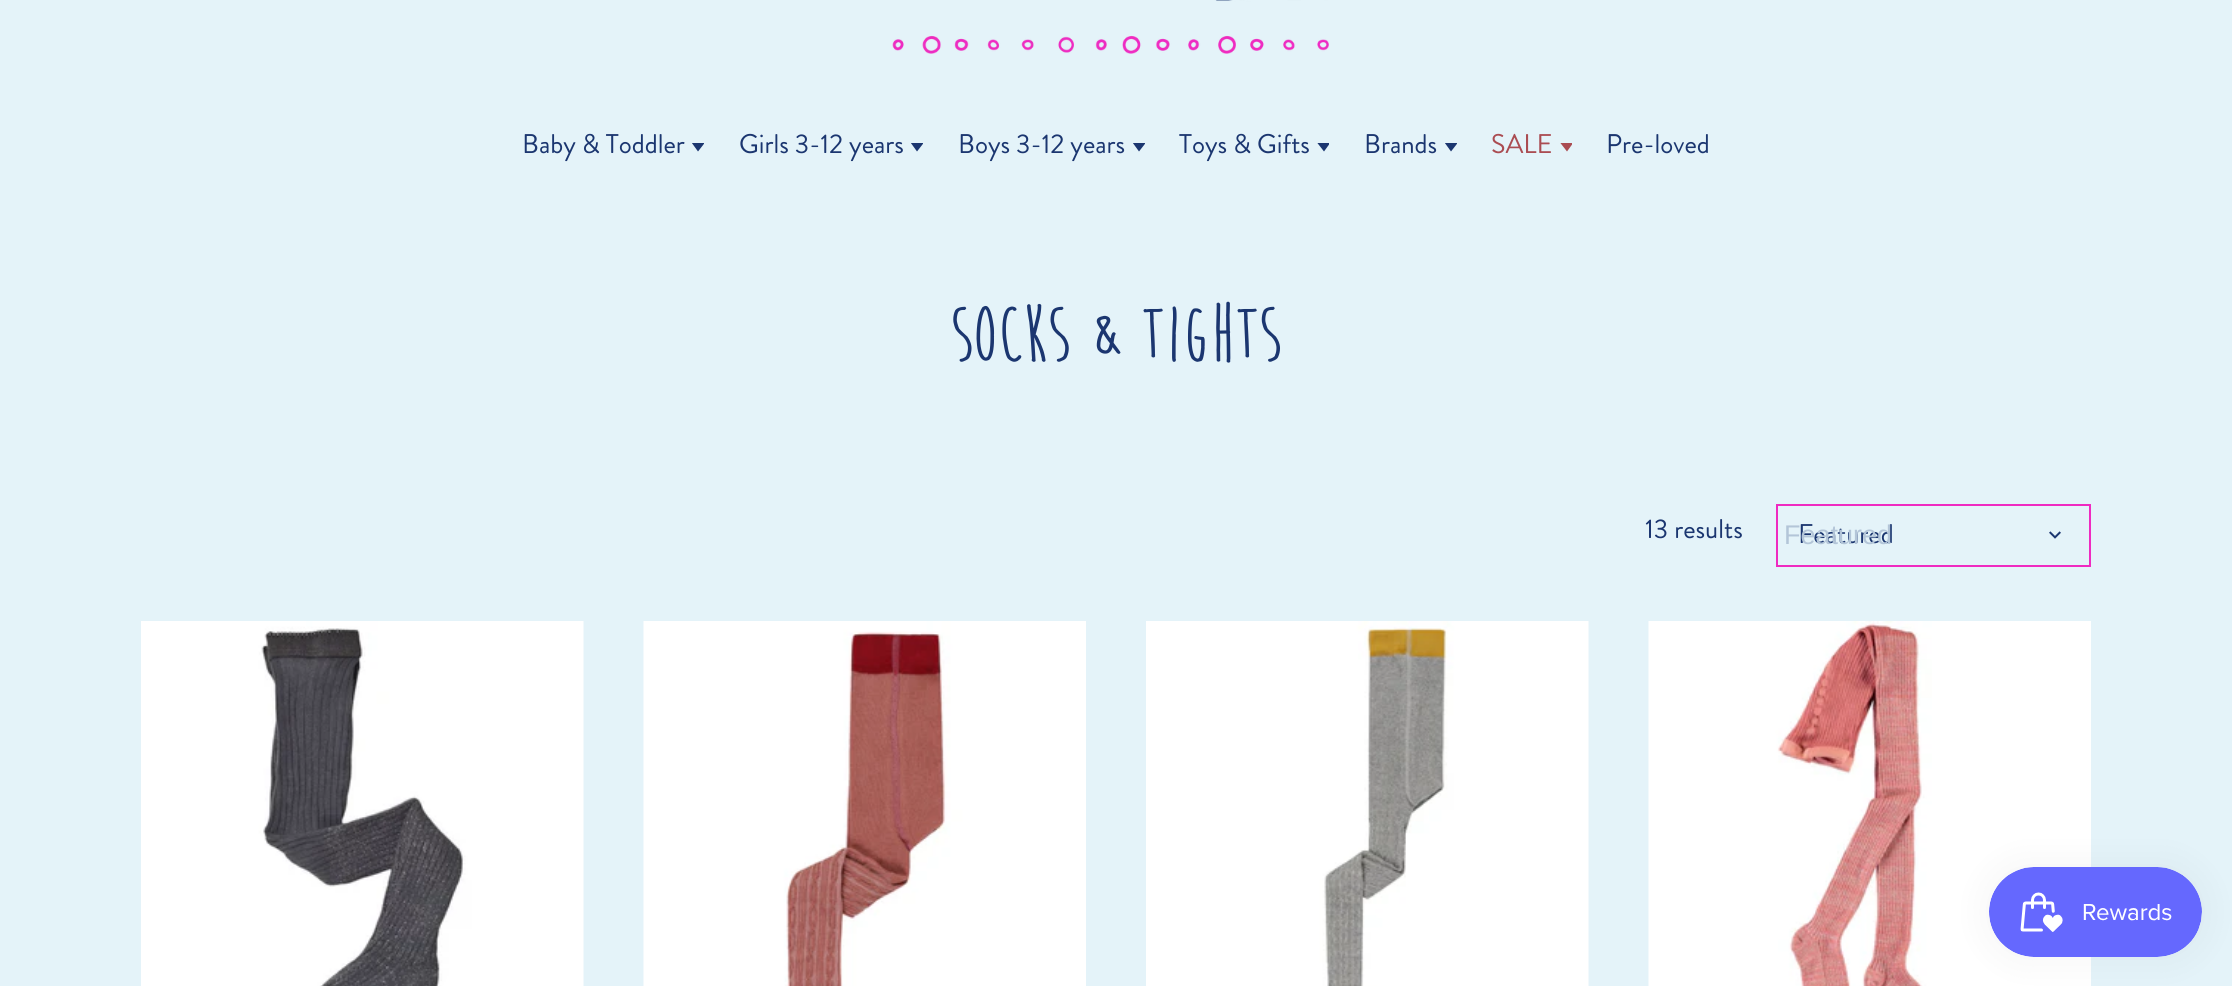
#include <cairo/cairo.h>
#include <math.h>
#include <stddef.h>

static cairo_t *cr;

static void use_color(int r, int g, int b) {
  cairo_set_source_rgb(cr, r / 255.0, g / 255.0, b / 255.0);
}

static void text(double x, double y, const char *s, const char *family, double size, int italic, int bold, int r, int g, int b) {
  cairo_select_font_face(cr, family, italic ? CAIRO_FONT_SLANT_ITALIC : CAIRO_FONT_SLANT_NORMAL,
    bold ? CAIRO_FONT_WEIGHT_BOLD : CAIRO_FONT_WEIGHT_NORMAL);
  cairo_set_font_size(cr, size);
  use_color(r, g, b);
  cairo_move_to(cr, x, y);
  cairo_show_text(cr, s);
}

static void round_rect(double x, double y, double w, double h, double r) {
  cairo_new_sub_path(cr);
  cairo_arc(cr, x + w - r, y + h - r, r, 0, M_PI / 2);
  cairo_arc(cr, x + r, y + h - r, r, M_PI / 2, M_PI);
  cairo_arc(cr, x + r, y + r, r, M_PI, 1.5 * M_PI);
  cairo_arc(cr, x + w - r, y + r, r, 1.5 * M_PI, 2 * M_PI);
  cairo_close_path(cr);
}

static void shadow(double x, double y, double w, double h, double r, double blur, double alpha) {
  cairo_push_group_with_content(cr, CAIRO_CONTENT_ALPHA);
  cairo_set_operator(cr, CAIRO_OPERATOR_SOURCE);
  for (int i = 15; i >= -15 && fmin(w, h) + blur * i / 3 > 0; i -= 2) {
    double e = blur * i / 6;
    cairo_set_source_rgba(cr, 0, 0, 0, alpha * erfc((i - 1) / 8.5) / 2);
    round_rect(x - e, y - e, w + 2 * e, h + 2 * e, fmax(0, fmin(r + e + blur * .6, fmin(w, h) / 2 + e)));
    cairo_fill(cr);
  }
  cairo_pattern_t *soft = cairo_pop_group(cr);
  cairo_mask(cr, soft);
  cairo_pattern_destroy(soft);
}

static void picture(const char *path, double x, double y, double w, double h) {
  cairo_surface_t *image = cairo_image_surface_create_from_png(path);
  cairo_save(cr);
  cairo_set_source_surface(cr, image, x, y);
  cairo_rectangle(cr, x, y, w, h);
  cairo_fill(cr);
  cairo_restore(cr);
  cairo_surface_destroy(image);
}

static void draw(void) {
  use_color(228, 243, 249);
  cairo_paint(cr);
  picture("img_01.png", 892, 0, 437, 54);
  cairo_save(cr);
  cairo_rectangle(cr, 692, 143, 12, 12);
  cairo_clip(cr);
  use_color(27, 54, 112);
  cairo_set_fill_rule(cr, CAIRO_FILL_RULE_EVEN_ODD);
  cairo_new_path(cr);
  cairo_move_to(cr, 698, 151.5);
  cairo_line_to(cr, 691.5, 142.5);
  cairo_line_to(cr, 705, 142.5);
  cairo_close_path(cr);
  cairo_fill(cr);
  cairo_restore(cr);
  cairo_save(cr);
  cairo_rectangle(cr, 911, 143, 12, 12);
  cairo_clip(cr);
  use_color(27, 54, 112);
  cairo_set_fill_rule(cr, CAIRO_FILL_RULE_EVEN_ODD);
  cairo_new_path(cr);
  cairo_move_to(cr, 917, 151.5);
  cairo_line_to(cr, 910.5, 142.5);
  cairo_line_to(cr, 924, 142.5);
  cairo_close_path(cr);
  cairo_fill(cr);
  cairo_restore(cr);
  cairo_save(cr);
  cairo_rectangle(cr, 1133, 143, 12, 12);
  cairo_clip(cr);
  use_color(27, 54, 112);
  cairo_set_fill_rule(cr, CAIRO_FILL_RULE_EVEN_ODD);
  cairo_new_path(cr);
  cairo_move_to(cr, 1139, 151.5);
  cairo_line_to(cr, 1132.5, 142.5);
  cairo_line_to(cr, 1146, 142.5);
  cairo_close_path(cr);
  cairo_fill(cr);
  cairo_restore(cr);
  cairo_save(cr);
  cairo_rectangle(cr, 1317, 143, 12, 12);
  cairo_clip(cr);
  use_color(27, 54, 112);
  cairo_set_fill_rule(cr, CAIRO_FILL_RULE_EVEN_ODD);
  cairo_new_path(cr);
  cairo_move_to(cr, 1324, 151.5);
  cairo_line_to(cr, 1317, 142.5);
  cairo_line_to(cr, 1330.5, 142.5);
  cairo_close_path(cr);
  cairo_fill(cr);
  cairo_restore(cr);
  cairo_save(cr);
  cairo_rectangle(cr, 1445, 143, 12, 12);
  cairo_clip(cr);
  use_color(27, 54, 112);
  cairo_set_fill_rule(cr, CAIRO_FILL_RULE_EVEN_ODD);
  cairo_new_path(cr);
  cairo_move_to(cr, 1451, 151.5);
  cairo_line_to(cr, 1444.5, 142.5);
  cairo_line_to(cr, 1458, 142.5);
  cairo_close_path(cr);
  cairo_fill(cr);
  cairo_restore(cr);
  cairo_save(cr);
  cairo_rectangle(cr, 1560, 143, 12, 12);
  cairo_clip(cr);
  use_color(170, 76, 82);
  cairo_set_fill_rule(cr, CAIRO_FILL_RULE_EVEN_ODD);
  cairo_new_path(cr);
  cairo_move_to(cr, 1567, 151.5);
  cairo_line_to(cr, 1560, 142.5);
  cairo_line_to(cr, 1573.5, 142.5);
  cairo_close_path(cr);
  cairo_fill(cr);
  cairo_restore(cr);
  cairo_rectangle(cr, 1777, 505, 313, 61);
  use_color(239, 42, 193);
  cairo_stroke(cr);
  picture("img_02.png", 2049, 531, 12, 8);
  picture("img_03.png", 141, 621, 443, 365);
  picture("img_04.png", 643, 621, 443, 365);
  picture("img_05.png", 1146, 621, 443, 365);
  picture("img_06.png", 1648, 621, 443, 365);
  use_color(0, 0, 0);
  shadow(1989, 867, 213, 90, 45, 19, 0.05);
  picture("img_07.png", 1989, 867, 213, 90);
  text(522, 153, "Baby & Toddler", "Brandon Grotesque", 27, 0, 0, 27, 54, 112);
  text(739, 153, "Girls 3-12 years", "Brandon Grotesque", 27, 0, 0, 27, 54, 112);
  text(958, 153, "Boys 3-12 years", "Brandon Grotesque", 27, 0, 0, 27, 54, 112);
  text(1179, 153, "Toys & Gifts", "Brandon Grotesque", 27, 0, 0, 27, 54, 112);
  text(1364, 153, "Brands", "Brandon Grotesque", 27, 0, 0, 27, 54, 112);
  text(1491, 153, "SALE", "Brandon Grotesque", 27, 0, 0, 170, 76, 82);
  text(1606, 153, "Pre-loved", "Brandon Grotesque", 27, 0, 0, 27, 54, 112);
  text(950, 361, "Socks & Tights", "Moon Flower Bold", 81, 0, 1, 27, 54, 112);
  text(1645, 538, "13 results", "Brandon Grotesque", 27, 0, 0, 27, 54, 112);
  text(1798, 543, "Featured", "Brandon Grotesque", 27, 0, 0, 27, 54, 112);
  text(1784, 544, "Featured", "Liberation Sans", 27, 0, 0, 179, 197, 216);
}

int main(void) {
  cairo_surface_t *surface = cairo_image_surface_create(CAIRO_FORMAT_RGB24, 2232, 986);
  cr = cairo_create(surface);
  cairo_font_options_t *options = cairo_font_options_create();
  cairo_font_options_set_hint_metrics(options, CAIRO_HINT_METRICS_OFF);
  cairo_font_options_set_hint_style(options, CAIRO_HINT_STYLE_NONE);
  cairo_set_font_options(cr, options);
  cairo_set_miter_limit(cr, 4);
  draw();
  cairo_surface_write_to_png(surface, "out.png");
  cairo_font_options_destroy(options);
  cairo_destroy(cr);
  cairo_surface_destroy(surface);
  return 0;
}
